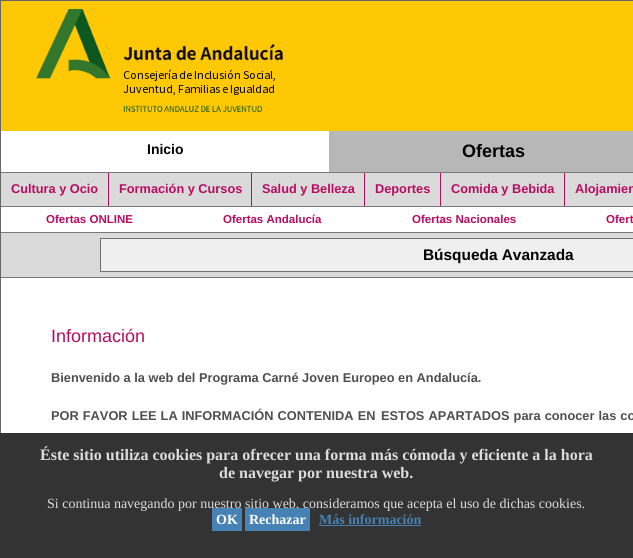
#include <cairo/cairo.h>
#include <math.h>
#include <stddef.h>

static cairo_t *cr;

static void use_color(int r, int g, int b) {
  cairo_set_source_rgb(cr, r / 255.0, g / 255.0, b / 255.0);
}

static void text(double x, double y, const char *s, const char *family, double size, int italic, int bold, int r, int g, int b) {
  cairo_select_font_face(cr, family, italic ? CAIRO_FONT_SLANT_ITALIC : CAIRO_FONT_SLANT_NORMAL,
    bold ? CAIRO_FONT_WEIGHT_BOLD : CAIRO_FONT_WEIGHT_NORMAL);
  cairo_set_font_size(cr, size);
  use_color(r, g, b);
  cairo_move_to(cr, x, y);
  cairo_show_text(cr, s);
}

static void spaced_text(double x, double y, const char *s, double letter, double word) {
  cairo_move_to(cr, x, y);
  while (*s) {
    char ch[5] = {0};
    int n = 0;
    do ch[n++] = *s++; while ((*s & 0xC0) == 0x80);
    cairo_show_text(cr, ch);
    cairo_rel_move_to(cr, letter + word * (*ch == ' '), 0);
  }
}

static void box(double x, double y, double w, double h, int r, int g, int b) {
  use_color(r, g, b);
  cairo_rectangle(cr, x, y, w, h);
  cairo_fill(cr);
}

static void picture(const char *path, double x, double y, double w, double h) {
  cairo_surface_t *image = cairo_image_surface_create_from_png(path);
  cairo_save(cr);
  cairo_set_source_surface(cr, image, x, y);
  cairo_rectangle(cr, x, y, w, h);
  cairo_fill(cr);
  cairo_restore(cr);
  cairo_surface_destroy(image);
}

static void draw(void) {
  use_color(255, 255, 255);
  cairo_paint(cr);
  cairo_rectangle(cr, 0.5, 0.5, 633, 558);
  use_color(102, 102, 102);
  cairo_set_line_width(cr, 1);
  cairo_stroke(cr);
  box(1, 1, 632, 130, 255, 200, 5);
  picture("img_01.png", 36, 9, 263, 103);
  box(329, 131, 304, 41, 183, 183, 183);
  box(1, 173, 632, 33, 218, 218, 218);
  box(1, 172, 632, 1, 120, 120, 120);
  box(1, 206, 632, 1, 120, 120, 120);
  box(108, 173, 1, 33, 185, 11, 98);
  box(251, 173, 1, 33, 185, 11, 98);
  box(364, 173, 1, 33, 185, 11, 98);
  box(440, 173, 1, 33, 185, 11, 98);
  box(564, 173, 1, 33, 185, 11, 98);
  box(1, 233, 632, 44, 218, 218, 218);
  box(1, 232, 632, 1, 120, 120, 120);
  box(1, 277, 632, 1, 120, 120, 120);
  use_color(239, 239, 239);
  cairo_rectangle(cr, 100.5, 238.5, 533, 33);
  cairo_fill_preserve(cr);
  use_color(114, 114, 114);
  cairo_stroke(cr);
  box(0, 433, 633, 125, 51, 51, 51);
  box(319, 525, 102, 1, 70, 130, 180);
  text(147, 154, "Inicio", "Liberation Sans", 14, 0, 1, 0, 0, 0);
  text(462, 157, "Ofertas", "Liberation Sans", 18, 0, 1, 0, 0, 0);
  text(11, 193, "Cultura y Ocio", "Liberation Sans", 12.75, 0, 1, 185, 11, 98);
  text(119, 193, "Formación y Cursos", "Liberation Sans", 12.75, 0, 1, 185, 11, 98);
  text(262, 193, "Salud y Belleza", "Liberation Sans", 12.75, 0, 1, 185, 11, 98);
  text(375, 193, "Deportes", "Liberation Sans", 12.75, 0, 1, 185, 11, 98);
  text(451, 193, "Comida y Bebida", "Liberation Sans", 12.75, 0, 1, 185, 11, 98);
  text(575, 193, "Alojamien", "Liberation Sans", 12.75, 0, 1, 185, 11, 98);
  text(46, 223, "Ofertas ONLINE", "Liberation Sans", 11.5, 0, 1, 185, 11, 98);
  text(223, 223, "Ofertas Andalucía", "Liberation Sans", 11.5, 0, 1, 185, 11, 98);
  text(412, 223, "Ofertas Nacionales", "Liberation Sans", 11.5, 0, 1, 185, 11, 98);
  text(606, 223, "Ofert", "Liberation Sans", 11.5, 0, 1, 185, 11, 98);
  text(423, 260, "Búsqueda Avanzada", "Liberation Sans", 15.4, 0, 1, 0, 0, 0);
  text(51, 342, "Información", "Liberation Sans", 18, 0, 0, 185, 11, 98);
  text(51, 382, "Bienvenido a la web del Programa Carné Joven Europeo en Andalucía.", "Liberation Sans", 12.8, 0, 1, 78, 78, 80);
  spaced_text(51, 420, "POR FAVOR LEE LA INFORMACIÓN CONTENIDA EN", 0, 0.5);
  spaced_text(381, 420, "ESTOS APARTADOS para conocer las co", 0, 0.5);
  text(40, 460, "Éste sitio utiliza cookies para ofrecer una forma más cómoda y eficiente a la hora", "Liberation Serif", 16, 0, 1, 221, 221, 221);
  text(219, 478, "de navegar por nuestra web.", "Liberation Serif", 16, 0, 1, 221, 221, 221);
  text(47, 508, "Si continua navegando por nuestro sitio web, consideramos que acepta el uso de dichas cookies.", "Liberation Serif", 14, 0, 0, 221, 221, 221);
  box(212, 508, 30, 23, 70, 130, 180);
  text(216, 524, "OK", "Liberation Serif", 14, 0, 1, 255, 255, 255);
  box(245, 508, 65, 23, 70, 130, 180);
  text(249, 524, "Rechazar", "Liberation Serif", 14, 0, 1, 255, 255, 255);
  text(319, 524, "Más información", "Liberation Serif", 14, 0, 1, 70, 130, 180);
}

int main(void) {
  cairo_surface_t *surface = cairo_image_surface_create(CAIRO_FORMAT_RGB24, 633, 558);
  cr = cairo_create(surface);
  cairo_font_options_t *options = cairo_font_options_create();
  cairo_font_options_set_hint_metrics(options, CAIRO_HINT_METRICS_OFF);
  cairo_font_options_set_hint_style(options, CAIRO_HINT_STYLE_NONE);
  cairo_set_font_options(cr, options);
  cairo_set_miter_limit(cr, 4);
  draw();
  cairo_surface_write_to_png(surface, "out.png");
  cairo_font_options_destroy(options);
  cairo_destroy(cr);
  cairo_surface_destroy(surface);
  return 0;
}
